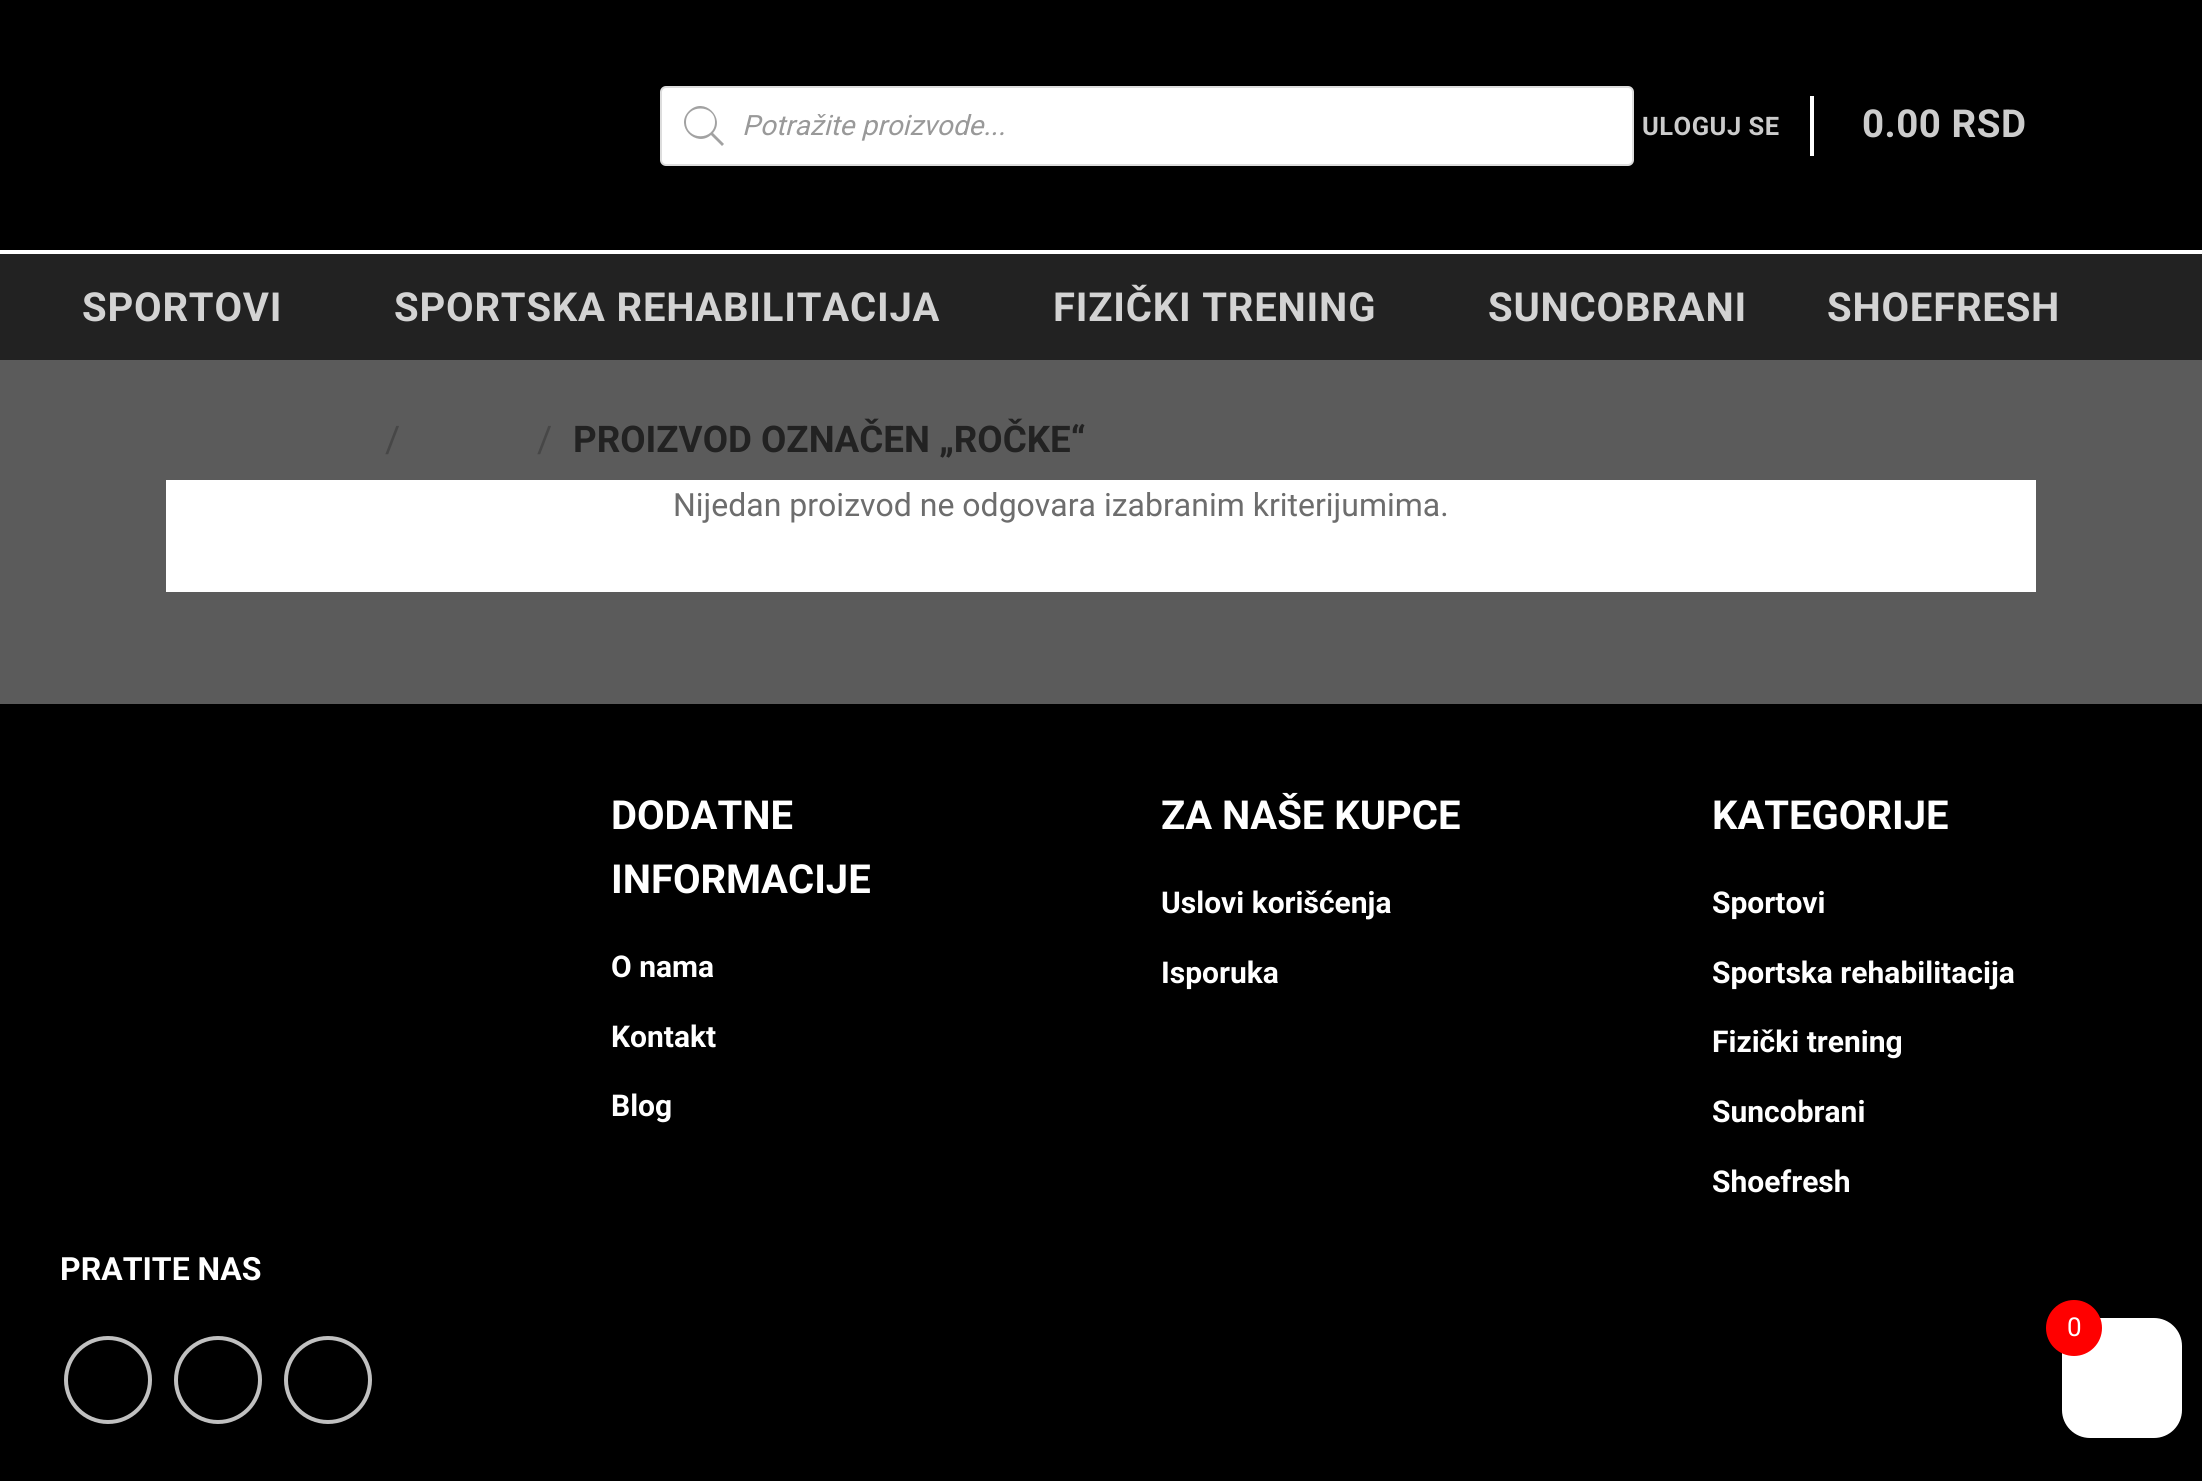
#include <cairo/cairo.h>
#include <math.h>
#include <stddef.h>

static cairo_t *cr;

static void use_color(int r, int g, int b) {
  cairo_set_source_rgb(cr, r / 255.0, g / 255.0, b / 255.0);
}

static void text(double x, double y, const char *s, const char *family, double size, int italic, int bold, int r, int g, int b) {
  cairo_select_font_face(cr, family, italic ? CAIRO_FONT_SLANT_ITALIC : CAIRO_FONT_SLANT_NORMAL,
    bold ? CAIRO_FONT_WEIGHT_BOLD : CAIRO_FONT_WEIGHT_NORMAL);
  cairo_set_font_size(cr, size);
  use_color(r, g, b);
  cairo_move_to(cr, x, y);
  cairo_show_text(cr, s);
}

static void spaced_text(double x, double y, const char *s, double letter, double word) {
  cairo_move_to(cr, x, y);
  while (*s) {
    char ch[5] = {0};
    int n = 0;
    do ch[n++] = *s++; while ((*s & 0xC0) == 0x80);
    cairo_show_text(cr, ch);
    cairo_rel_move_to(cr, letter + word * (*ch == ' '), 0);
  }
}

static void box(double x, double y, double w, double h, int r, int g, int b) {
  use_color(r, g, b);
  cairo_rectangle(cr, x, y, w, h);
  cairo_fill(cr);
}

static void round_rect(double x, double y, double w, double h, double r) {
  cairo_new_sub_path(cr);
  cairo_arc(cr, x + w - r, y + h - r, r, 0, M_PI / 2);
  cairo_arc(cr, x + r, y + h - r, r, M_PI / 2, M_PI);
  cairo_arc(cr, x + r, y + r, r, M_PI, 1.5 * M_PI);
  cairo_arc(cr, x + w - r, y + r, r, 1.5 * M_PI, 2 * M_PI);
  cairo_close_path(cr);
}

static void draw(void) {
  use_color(91, 91, 91);
  cairo_paint(cr);
  box(0, 0, 2202, 250, 0, 0, 0);
  use_color(255, 255, 255);
  round_rect(661, 87, 972, 78, 5);
  cairo_fill_preserve(cr);
  use_color(221, 221, 221);
  cairo_stroke(cr);
  use_color(162, 162, 162);
  cairo_new_path(cr);
  cairo_move_to(cr, 724, 144);
  cairo_line_to(cr, 713, 133);
  cairo_curve_to(cr, 726, 118, 704, 96, 689, 111);
  cairo_curve_to(cr, 674, 126, 696, 148, 711, 135);
  cairo_line_to(cr, 722, 146);
  cairo_close_path(cr);
  cairo_move_to(cr, 686, 122);
  cairo_curve_to(cr, 686, 104, 715, 104, 715, 122);
  cairo_curve_to(cr, 715, 141, 686, 141, 686, 122);
  cairo_close_path(cr);
  cairo_fill(cr);
  box(1810, 96, 4, 60, 255, 255, 255);
  box(0, 254, 2202, 106, 34, 34, 34);
  box(0, 250, 2202, 4, 255, 255, 255);
  box(166, 480, 1870, 112, 255, 255, 255);
  box(0, 704, 2202, 777, 0, 0, 0);
  cairo_arc(cr, 108, 1380, 42, 0, 2 * M_PI);
  use_color(192, 192, 192);
  cairo_set_line_width(cr, 4);
  cairo_stroke(cr);
  cairo_arc(cr, 218, 1380, 42, 0, 2 * M_PI);
  cairo_stroke(cr);
  cairo_arc(cr, 328, 1380, 42, 0, 2 * M_PI);
  cairo_stroke(cr);
  use_color(255, 255, 255);
  round_rect(2062, 1318, 120, 120, 28);
  cairo_fill(cr);
  use_color(255, 0, 0);
  cairo_arc(cr, 2074, 1328, 28, 0, 2 * M_PI);
  cairo_fill(cr);
  text(742, 135, "Potražite proizvode...", "Roboto", 28, 1, 0, 153, 153, 153);
  cairo_select_font_face(cr, "Roboto", CAIRO_FONT_SLANT_NORMAL, CAIRO_FONT_WEIGHT_BOLD);
  cairo_set_font_size(cr, 25.5);
  use_color(204, 204, 204);
  spaced_text(1642, 135, "ULOGUJ SE", 0.5, 0);
  cairo_set_font_size(cr, 38.5);
  spaced_text(1862, 137, "0.00 RSD", 0.5, 0);
  cairo_set_font_size(cr, 40);
  use_color(211, 211, 211);
  spaced_text(82, 321, "SPORTOVI", 0.8, 0);
  spaced_text(394, 321, "SPORTSKA REHABILITACIJA", 0.8, 0);
  spaced_text(1053, 321, "FIZIČKI TRENING", 0.8, 0);
  spaced_text(1488, 321, "SUNCOBRANI", 0.8, 0);
  spaced_text(1827, 321, "SHOEFRESH", 0.8, 0);
  text(385, 452, "/", "Roboto", 36.75, 0, 0, 71, 71, 71);
  text(537, 452, "/", "Roboto", 36.75, 0, 0, 71, 71, 71);
  text(573, 452, "PROIZVOD OZNAČEN „ROČKE“", "Roboto", 36.75, 0, 1, 34, 34, 34);
  text(673, 516, "Nijedan proizvod ne odgovara izabranim kriterijumima.", "Roboto", 32, 0, 0, 109, 109, 109);
  text(611, 829, "DODATNE", "Roboto", 40, 0, 1, 255, 255, 255);
  text(611, 893, "INFORMACIJE", "Roboto", 40, 0, 1, 255, 255, 255);
  text(611, 977, "O nama", "Roboto", 30, 0, 1, 255, 255, 255);
  text(611, 1047, "Kontakt", "Roboto", 30, 0, 1, 255, 255, 255);
  text(611, 1116, "Blog", "Roboto", 30, 0, 1, 255, 255, 255);
  text(1161, 829, "ZA NAŠE KUPCE", "Roboto", 40, 0, 1, 255, 255, 255);
  text(1161, 913, "Uslovi korišćenja", "Roboto", 30, 0, 1, 255, 255, 255);
  text(1161, 983, "Isporuka", "Roboto", 30, 0, 1, 255, 255, 255);
  text(1712, 829, "KATEGORIJE", "Roboto", 40, 0, 1, 255, 255, 255);
  text(1712, 913, "Sportovi", "Roboto", 30, 0, 1, 255, 255, 255);
  text(1712, 983, "Sportska rehabilitacija", "Roboto", 30, 0, 1, 255, 255, 255);
  text(1712, 1052, "Fizički trening", "Roboto", 30, 0, 1, 255, 255, 255);
  text(1712, 1122, "Suncobrani", "Roboto", 30, 0, 1, 255, 255, 255);
  text(1712, 1192, "Shoefresh", "Roboto", 30, 0, 1, 255, 255, 255);
  text(60, 1280, "PRATITE NAS", "Roboto", 32, 0, 1, 255, 255, 255);
  text(2067, 1336, "0", "Roboto", 26, 0, 0, 255, 255, 255);
}

int main(void) {
  cairo_surface_t *surface = cairo_image_surface_create(CAIRO_FORMAT_RGB24, 2202, 1481);
  cr = cairo_create(surface);
  cairo_font_options_t *options = cairo_font_options_create();
  cairo_font_options_set_hint_metrics(options, CAIRO_HINT_METRICS_OFF);
  cairo_font_options_set_hint_style(options, CAIRO_HINT_STYLE_NONE);
  cairo_set_font_options(cr, options);
  cairo_set_miter_limit(cr, 4);
  draw();
  cairo_surface_write_to_png(surface, "out.png");
  cairo_font_options_destroy(options);
  cairo_destroy(cr);
  cairo_surface_destroy(surface);
  return 0;
}
